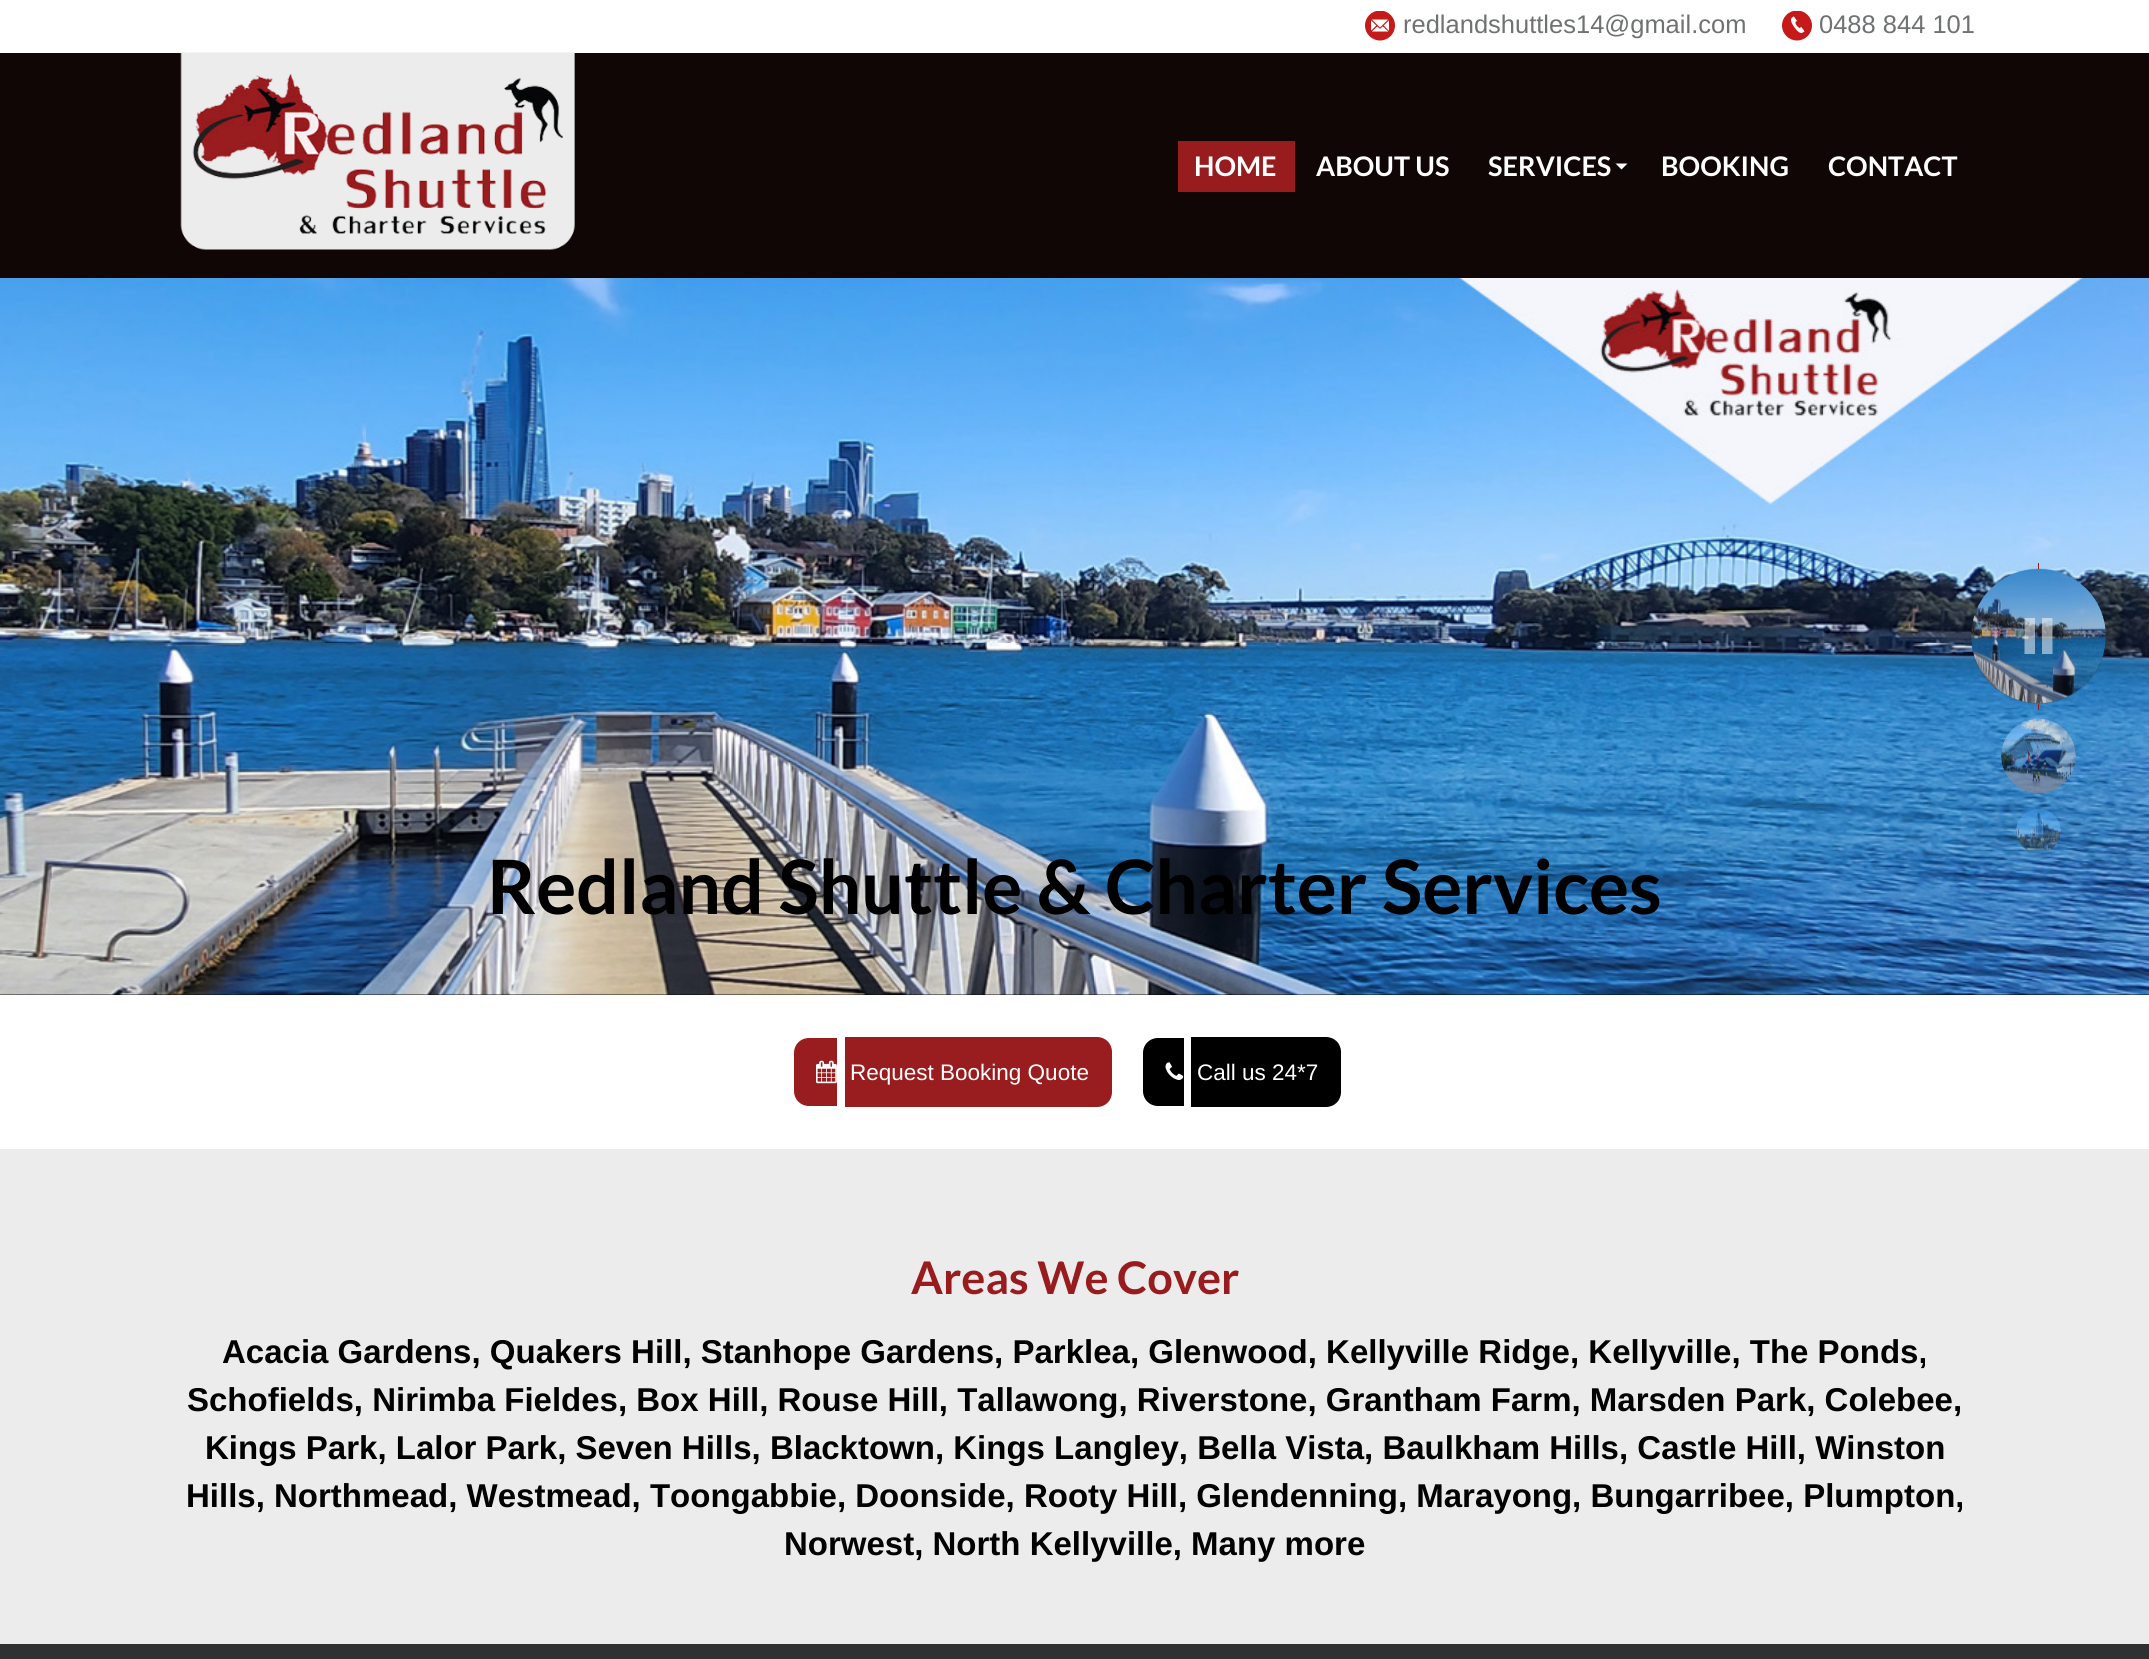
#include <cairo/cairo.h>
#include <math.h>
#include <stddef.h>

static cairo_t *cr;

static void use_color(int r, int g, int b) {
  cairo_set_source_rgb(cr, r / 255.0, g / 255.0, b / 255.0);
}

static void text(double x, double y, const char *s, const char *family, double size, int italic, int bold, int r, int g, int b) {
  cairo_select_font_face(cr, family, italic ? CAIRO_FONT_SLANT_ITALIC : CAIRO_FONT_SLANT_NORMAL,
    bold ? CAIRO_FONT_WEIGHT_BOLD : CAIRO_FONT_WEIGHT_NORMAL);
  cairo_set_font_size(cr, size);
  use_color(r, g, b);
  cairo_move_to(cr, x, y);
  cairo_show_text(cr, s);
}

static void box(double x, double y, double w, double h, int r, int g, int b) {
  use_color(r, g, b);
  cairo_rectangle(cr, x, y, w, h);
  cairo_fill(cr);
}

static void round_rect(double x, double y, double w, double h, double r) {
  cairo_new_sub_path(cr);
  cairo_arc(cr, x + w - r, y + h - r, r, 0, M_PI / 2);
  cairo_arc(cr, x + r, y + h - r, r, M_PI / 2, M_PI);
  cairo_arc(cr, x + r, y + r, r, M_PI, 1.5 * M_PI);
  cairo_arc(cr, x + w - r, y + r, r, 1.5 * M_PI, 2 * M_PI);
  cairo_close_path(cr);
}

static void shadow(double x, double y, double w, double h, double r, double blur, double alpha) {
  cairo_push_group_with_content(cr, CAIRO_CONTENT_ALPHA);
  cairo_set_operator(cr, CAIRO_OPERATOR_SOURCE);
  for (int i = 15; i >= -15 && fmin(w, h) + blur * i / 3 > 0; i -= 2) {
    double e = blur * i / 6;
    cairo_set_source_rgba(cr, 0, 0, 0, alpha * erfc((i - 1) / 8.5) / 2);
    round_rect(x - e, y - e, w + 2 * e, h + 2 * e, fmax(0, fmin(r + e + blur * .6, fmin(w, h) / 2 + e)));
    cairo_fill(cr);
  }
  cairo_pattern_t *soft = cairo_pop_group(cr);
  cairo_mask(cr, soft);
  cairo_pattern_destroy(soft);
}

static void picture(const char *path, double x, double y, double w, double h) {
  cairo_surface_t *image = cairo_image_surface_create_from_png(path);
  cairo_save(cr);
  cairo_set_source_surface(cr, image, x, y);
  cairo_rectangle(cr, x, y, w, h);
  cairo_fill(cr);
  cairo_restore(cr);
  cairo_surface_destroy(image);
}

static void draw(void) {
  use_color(255, 255, 255);
  cairo_paint(cr);
  picture("img_01.png", 1365, 11, 30, 30);
  picture("img_02.png", 1782, 11, 30, 30);
  box(0, 53, 2149, 225, 17, 6, 6);
  picture("img_03.png", 180, 52, 395, 198);
  box(1178, 141, 117, 51, 152, 27, 30);
  use_color(255, 255, 255);
  cairo_new_path(cr);
  cairo_move_to(cr, 1615.5, 163.5);
  cairo_line_to(cr, 1627.5, 163.5);
  cairo_line_to(cr, 1621.5, 169.5);
  cairo_close_path(cr);
  cairo_fill(cr);
  box(0, 994, 2149, 1, 0, 0, 0);
  picture("img_07.png", 0, 278, 2149, 717);
  use_color(0, 0, 0);
  shadow(1971, 569, 135, 135, 67.5, 2, 0.05);
  cairo_set_source_rgba(cr, 0.459, 0.459, 0.459, 0.15);
  cairo_new_path(cr);
  cairo_move_to(cr, 2106, 637);
  cairo_curve_to(cr, 2106, 674, 2076, 704, 2038, 704);
  cairo_curve_to(cr, 2001, 704, 1971, 674, 1971, 637);
  cairo_curve_to(cr, 1971, 650, 1975, 664, 1983, 675);
  cairo_curve_to(cr, 2020, 730, 2107, 703, 2106, 637);
  cairo_close_path(cr);
  cairo_fill(cr);
  picture("img_04.png", 1971, 568, 135, 136);
  cairo_set_source_rgba(cr, 0.459, 0.459, 0.459, 0.12);
  cairo_new_path(cr);
  cairo_move_to(cr, 2001, 757);
  cairo_curve_to(cr, 2000, 794, 2049, 809, 2070, 778);
  cairo_curve_to(cr, 2074, 772, 2076, 764, 2076, 757);
  cairo_curve_to(cr, 2076, 777, 2059, 794, 2038, 794);
  cairo_curve_to(cr, 2018, 794, 2001, 777, 2001, 757);
  cairo_close_path(cr);
  cairo_fill(cr);
  picture("img_05.png", 2001, 718, 75, 76);
  cairo_set_source_rgba(cr, 0.459, 0.459, 0.459, 0.07);
  cairo_new_path(cr);
  cairo_move_to(cr, 2061, 832);
  cairo_curve_to(cr, 2060, 860, 2017, 860, 2016, 832);
  cairo_curve_to(cr, 2015, 862, 2062, 862, 2061, 832);
  cairo_close_path(cr);
  cairo_fill(cr);
  picture("img_06.png", 2016, 808, 45, 46);
  cairo_save(cr);
  cairo_rectangle(cr, 1965, 563, 74, 147);
  cairo_clip(cr);
  use_color(152, 27, 30);
  cairo_set_fill_rule(cr, CAIRO_FILL_RULE_EVEN_ODD);
  cairo_new_path(cr);
  cairo_move_to(cr, 2038, 710);
  cairo_line_to(cr, 2038, 563);
  cairo_curve_to(cr, 2079, 563, 2112, 596, 2112, 636);
  cairo_curve_to(cr, 2112, 677, 2079, 710, 2038, 710);
  cairo_close_path(cr);
  cairo_move_to(cr, 2038, 704);
  cairo_line_to(cr, 2038, 569);
  cairo_curve_to(cr, 2076, 569, 2106, 599, 2106, 636);
  cairo_curve_to(cr, 2106, 673, 2076, 704, 2038, 704);
  cairo_close_path(cr);
  cairo_fill(cr);
  cairo_restore(cr);
  cairo_set_source_rgba(cr, 0, 0, 0, 0.15);
  cairo_arc(cr, 2038.5, 636.5, 67.5, 0, 2 * M_PI);
  cairo_fill(cr);
  cairo_set_source_rgba(cr, 1, 1, 1, 0.5);
  cairo_new_path(cr);
  cairo_move_to(cr, 2035, 654);
  cairo_line_to(cr, 2024.5, 654);
  cairo_line_to(cr, 2024.5, 618);
  cairo_line_to(cr, 2035, 618);
  cairo_close_path(cr);
  cairo_move_to(cr, 2052.5, 618);
  cairo_line_to(cr, 2042, 618);
  cairo_line_to(cr, 2042, 654);
  cairo_line_to(cr, 2052.5, 654);
  cairo_close_path(cr);
  cairo_fill(cr);
  use_color(153, 29, 31);
  cairo_new_path(cr);
  cairo_move_to(cr, 809, 1038);
  cairo_line_to(cr, 837, 1038);
  cairo_line_to(cr, 837, 1106);
  cairo_line_to(cr, 809, 1106);
  cairo_curve_to(cr, 800.5, 1106, 794, 1099.5, 794, 1091);
  cairo_line_to(cr, 794, 1053);
  cairo_curve_to(cr, 794, 1044.5, 800.5, 1038, 809, 1038);
  cairo_close_path(cr);
  cairo_fill(cr);
  cairo_new_path(cr);
  cairo_move_to(cr, 845, 1037);
  cairo_line_to(cr, 1097, 1037);
  cairo_curve_to(cr, 1105.5, 1037, 1112, 1043.5, 1112, 1052);
  cairo_line_to(cr, 1112, 1092);
  cairo_curve_to(cr, 1112, 1100.5, 1105.5, 1107, 1097, 1107);
  cairo_line_to(cr, 845, 1107);
  cairo_close_path(cr);
  cairo_fill(cr);
  picture("img_08.png", 816, 1060, 21, 24);
  use_color(0, 0, 0);
  cairo_new_path(cr);
  cairo_move_to(cr, 1158, 1038);
  cairo_line_to(cr, 1184, 1038);
  cairo_line_to(cr, 1184, 1106);
  cairo_line_to(cr, 1158, 1106);
  cairo_curve_to(cr, 1149.5, 1106, 1143, 1099.5, 1143, 1091);
  cairo_line_to(cr, 1143, 1053);
  cairo_curve_to(cr, 1143, 1044.5, 1149.5, 1038, 1158, 1038);
  cairo_close_path(cr);
  cairo_fill(cr);
  cairo_new_path(cr);
  cairo_move_to(cr, 1191, 1037);
  cairo_line_to(cr, 1326, 1037);
  cairo_curve_to(cr, 1334.5, 1037, 1341, 1043.5, 1341, 1052);
  cairo_line_to(cr, 1341, 1092);
  cairo_curve_to(cr, 1341, 1100.5, 1334.5, 1107, 1326, 1107);
  cairo_line_to(cr, 1191, 1107);
  cairo_close_path(cr);
  cairo_fill(cr);
  picture("img_09.png", 1165, 1062, 19, 18);
  box(0, 1149, 2149, 495, 236, 236, 236);
  box(0, 1644, 2149, 15, 46, 48, 49);
  text(1403, 33, "redlandshuttles14@gmail.com", "Liberation Sans", 25.5, 0, 0, 111, 113, 114);
  text(1819, 33, "0488 844 101", "Liberation Sans", 25.5, 0, 0, 111, 113, 114);
  text(1194, 176, "HOME", "Lato", 27, 0, 1, 255, 255, 255);
  text(1316, 176, "ABOUT US", "Lato", 27, 0, 1, 255, 255, 255);
  text(1488, 176, "SERVICES", "Lato", 27, 0, 1, 255, 255, 255);
  text(1661, 176, "BOOKING", "Lato", 27, 0, 1, 255, 255, 255);
  text(1828, 176, "CONTACT", "Lato", 27, 0, 1, 255, 255, 255);
  text(487, 914, "Redland Shuttle & Charter Services", "Lato", 75, 0, 1, 0, 0, 0);
  text(850, 1080, "Request Booking Quote", "Liberation Sans", 22.5, 0, 0, 255, 255, 255);
  text(1197, 1080, "Call us 24*7", "Liberation Sans", 22.5, 0, 0, 255, 255, 255);
  text(911, 1294, "Areas We Cover", "Lato", 45, 0, 1, 152, 27, 30);
  text(222, 1363, "Acacia Gardens, Quakers Hill, Stanhope Gardens, Parklea, Glenwood, Kellyville Ridge, Kellyville, The Ponds,", "Liberation Sans", 33, 0, 1, 0, 0, 0);
  text(187, 1411, "Schofields, Nirimba Fieldes, Box Hill, Rouse Hill, Tallawong, Riverstone, Grantham Farm, Marsden Park, Colebee,", "Liberation Sans", 33, 0, 1, 0, 0, 0);
  text(205, 1459, "Kings Park, Lalor Park, Seven Hills, Blacktown, Kings Langley, Bella Vista, Baulkham Hills, Castle Hill, Winston", "Liberation Sans", 33, 0, 1, 0, 0, 0);
  text(186, 1507, "Hills, Northmead, Westmead, Toongabbie, Doonside, Rooty Hill, Glendenning, Marayong, Bungarribee, Plumpton,", "Liberation Sans", 33, 0, 1, 0, 0, 0);
  text(784, 1555, "Norwest, North Kellyville, Many more", "Liberation Sans", 33, 0, 1, 0, 0, 0);
}

int main(void) {
  cairo_surface_t *surface = cairo_image_surface_create(CAIRO_FORMAT_RGB24, 2149, 1659);
  cr = cairo_create(surface);
  cairo_font_options_t *options = cairo_font_options_create();
  cairo_font_options_set_hint_metrics(options, CAIRO_HINT_METRICS_OFF);
  cairo_font_options_set_hint_style(options, CAIRO_HINT_STYLE_NONE);
  cairo_set_font_options(cr, options);
  cairo_set_miter_limit(cr, 4);
  draw();
  cairo_surface_write_to_png(surface, "out.png");
  cairo_font_options_destroy(options);
  cairo_destroy(cr);
  cairo_surface_destroy(surface);
  return 0;
}
